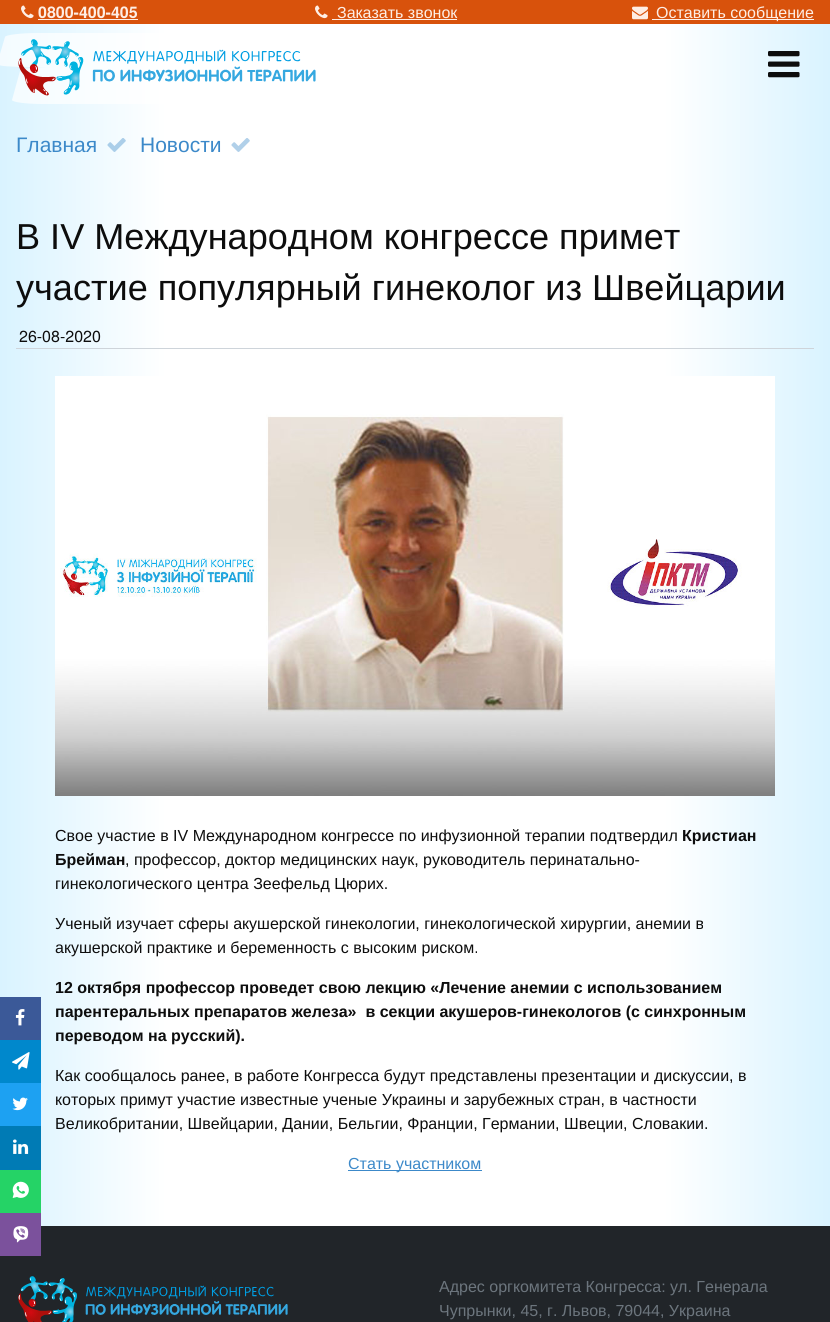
#include <cairo/cairo.h>
#include <math.h>
#include <stddef.h>

static cairo_t *cr;

static void use_color(int r, int g, int b) {
  cairo_set_source_rgb(cr, r / 255.0, g / 255.0, b / 255.0);
}

static void text(double x, double y, const char *s, const char *family, double size, int italic, int bold, int r, int g, int b) {
  cairo_select_font_face(cr, family, italic ? CAIRO_FONT_SLANT_ITALIC : CAIRO_FONT_SLANT_NORMAL,
    bold ? CAIRO_FONT_WEIGHT_BOLD : CAIRO_FONT_WEIGHT_NORMAL);
  cairo_set_font_size(cr, size);
  use_color(r, g, b);
  cairo_move_to(cr, x, y);
  cairo_show_text(cr, s);
}

static void box(double x, double y, double w, double h, int r, int g, int b) {
  use_color(r, g, b);
  cairo_rectangle(cr, x, y, w, h);
  cairo_fill(cr);
}

static void picture(const char *path, double x, double y, double w, double h) {
  cairo_surface_t *image = cairo_image_surface_create_from_png(path);
  cairo_save(cr);
  cairo_set_source_surface(cr, image, x, y);
  cairo_rectangle(cr, x, y, w, h);
  cairo_fill(cr);
  cairo_restore(cr);
  cairo_surface_destroy(image);
}

static void draw(void) {
  cairo_pattern_t *gradient;
  use_color(255, 255, 255);
  cairo_paint(cr);
  gradient = cairo_pattern_create_linear(0, 661, 830, 661);
  cairo_pattern_add_color_stop_rgba(gradient, 0, 0.851, 0.953, 1, 1);
  cairo_pattern_add_color_stop_rgba(gradient, 0.2, 1, 1, 1, 1);
  cairo_pattern_add_color_stop_rgba(gradient, 0.8, 1, 1, 1, 1);
  cairo_pattern_add_color_stop_rgba(gradient, 1, 0.851, 0.953, 1, 1);
  cairo_set_source(cr, gradient);
  cairo_pattern_destroy(gradient);
  cairo_rectangle(cr, 0, 24, 830, 1202);
  cairo_fill(cr);
  box(0, 0, 830, 24, 216, 82, 12);
  picture("img_01.png", 21, 5, 13, 14);
  box(38, 19, 100, 1, 254, 238, 229);
  picture("img_01.png", 315, 5, 13, 14);
  box(332, 19, 125, 1, 254, 238, 229);
  picture("img_02.png", 632, 6, 16, 14);
  box(652, 19, 162, 1, 254, 238, 229);
  cairo_set_source_rgba(cr, 1, 1, 1, 0.7);
  cairo_new_path(cr);
  cairo_move_to(cr, 38, 33);
  cairo_line_to(cr, 294, 33);
  cairo_curve_to(cr, 312, 33, 326, 35, 326, 37);
  cairo_line_to(cr, 318, 64);
  cairo_curve_to(cr, 318, 66, 303, 67, 285, 67);
  cairo_line_to(cr, 29, 67);
  cairo_curve_to(cr, 11, 67, -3, 66, -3, 64);
  cairo_line_to(cr, 5, 37);
  cairo_curve_to(cr, 5, 35, 20, 33, 38, 33);
  cairo_close_path(cr);
  cairo_fill(cr);
  cairo_new_path(cr);
  cairo_move_to(cr, 52, 67);
  cairo_line_to(cr, 304, 67);
  cairo_curve_to(cr, 322, 67, 335, 69, 335, 71);
  cairo_line_to(cr, 327, 100);
  cairo_curve_to(cr, 326, 102, 312, 104, 295, 104);
  cairo_line_to(cr, 43, 104);
  cairo_curve_to(cr, 25, 104, 12, 102, 12, 100);
  cairo_line_to(cr, 20, 71);
  cairo_curve_to(cr, 20, 69, 35, 67, 52, 67);
  cairo_close_path(cr);
  cairo_fill(cr);
  picture("img_03.png", 18, 39, 298, 57);
  picture("img_04.png", 768, 51, 32, 27);
  picture("img_05.png", 107, 138, 19, 14);
  picture("img_06.png", 231, 138, 19, 14);
  box(16, 348, 798, 1, 206, 212, 218);
  picture("img_07.png", 55, 376, 720, 420);
  box(348, 1170, 134, 1, 60, 137, 201);
  box(0, 997, 41, 43, 59, 89, 152);
  picture("img_08.png", 15, 1009, 10, 17);
  box(0, 1040, 41, 43, 0, 136, 204);
  picture("img_09.png", 12, 1052, 18, 18);
  box(0, 1083, 41, 43, 29, 161, 242);
  picture("img_10.png", 12, 1097, 16, 14);
  box(0, 1126, 41, 44, 0, 123, 181);
  picture("img_11.png", 13, 1139, 16, 15);
  box(0, 1170, 41, 43, 37, 211, 102);
  picture("img_12.png", 12, 1181, 17, 17);
  box(0, 1226, 830, 96, 33, 37, 41);
  box(0, 1213, 41, 43, 123, 81, 156);
  picture("img_13.png", 13, 1226, 16, 17);
  picture("img_14.png", 18, 1276, 270, 46);
  text(38, 18, "0800-400-405", "TeX Gyre Heros", 16, 0, 1, 254, 238, 229);
  text(337, 18, "Заказать звонок", "Liberation Sans", 16, 0, 0, 254, 238, 229);
  text(656, 18, "Оставить сообщение", "Liberation Sans", 16, 0, 0, 254, 238, 229);
  text(16, 152, "Главная", "Liberation Sans", 21, 0, 0, 60, 137, 201);
  text(140, 152, "Новости", "Liberation Sans", 21, 0, 0, 60, 137, 201);
  text(16, 249, "В IV Международном конгрессе примет", "Liberation Sans", 36.1, 0, 0, 13, 13, 13);
  text(16, 300, "участие популярный гинеколог из Швейцарии", "Liberation Sans", 36.1, 0, 0, 13, 13, 13);
  text(19, 342, "26-08-2020", "TeX Gyre Heros", 16, 0, 0, 13, 13, 13);
  text(55, 841, "Свое участие в IV Международном конгрессе по инфузионной терапии подтвердил", "Liberation Sans", 16, 0, 0, 13, 13, 13);
  text(682, 841, "Кристиан", "Liberation Sans", 16, 0, 1, 13, 13, 13);
  text(55, 865, "Брейман", "Liberation Sans", 16, 0, 1, 13, 13, 13);
  text(125, 865, ", профессор, доктор медицинских наук, руководитель перинатально-", "Liberation Sans", 16, 0, 0, 13, 13, 13);
  text(55, 889, "гинекологического центра Зеефельд Цюрих.", "Liberation Sans", 16, 0, 0, 13, 13, 13);
  text(55, 929, "Ученый изучает сферы акушерской гинекологии, гинекологической хирургии, анемии в", "Liberation Sans", 16, 0, 0, 13, 13, 13);
  text(55, 953, "акушерской практике и беременность с высоким риском.", "Liberation Sans", 16, 0, 0, 13, 13, 13);
  text(55, 993, "12 октября профессор проведет свою лекцию «Лечение анемии с использованием", "Liberation Sans", 16, 0, 1, 13, 13, 13);
  text(55, 1017, "парентеральных препаратов железа»  в секции акушеров-гинекологов (с синхронным", "Liberation Sans", 16, 0, 1, 13, 13, 13);
  text(55, 1041, "переводом на русский).", "Liberation Sans", 16, 0, 1, 13, 13, 13);
  text(55, 1081, "Как сообщалось ранее, в работе Конгресса будут представлены презентации и дискуссии, в", "Liberation Sans", 16, 0, 0, 13, 13, 13);
  text(55, 1105, "которых примут участие известные ученые Украины и зарубежных стран, в частности", "Liberation Sans", 16, 0, 0, 13, 13, 13);
  text(55, 1129, "Великобритании, Швейцарии, Дании, Бельгии, Франции, Германии, Швеции, Словакии.", "Liberation Sans", 16, 0, 0, 13, 13, 13);
  text(348, 1169, "Стать участником", "Liberation Sans", 16, 0, 0, 60, 137, 201);
  text(439, 1292, "Адрес оргкомитета Конгресса: ул. Генерала", "Liberation Sans", 16, 0, 0, 108, 117, 125);
  text(439, 1316, "Чупрынки, 45, г. Львов, 79044, Украина", "Liberation Sans", 16, 0, 0, 108, 117, 125);
}

int main(void) {
  cairo_surface_t *surface = cairo_image_surface_create(CAIRO_FORMAT_RGB24, 830, 1322);
  cr = cairo_create(surface);
  cairo_font_options_t *options = cairo_font_options_create();
  cairo_font_options_set_hint_metrics(options, CAIRO_HINT_METRICS_OFF);
  cairo_font_options_set_hint_style(options, CAIRO_HINT_STYLE_NONE);
  cairo_set_font_options(cr, options);
  cairo_set_miter_limit(cr, 4);
  draw();
  cairo_surface_write_to_png(surface, "out.png");
  cairo_font_options_destroy(options);
  cairo_destroy(cr);
  cairo_surface_destroy(surface);
  return 0;
}
